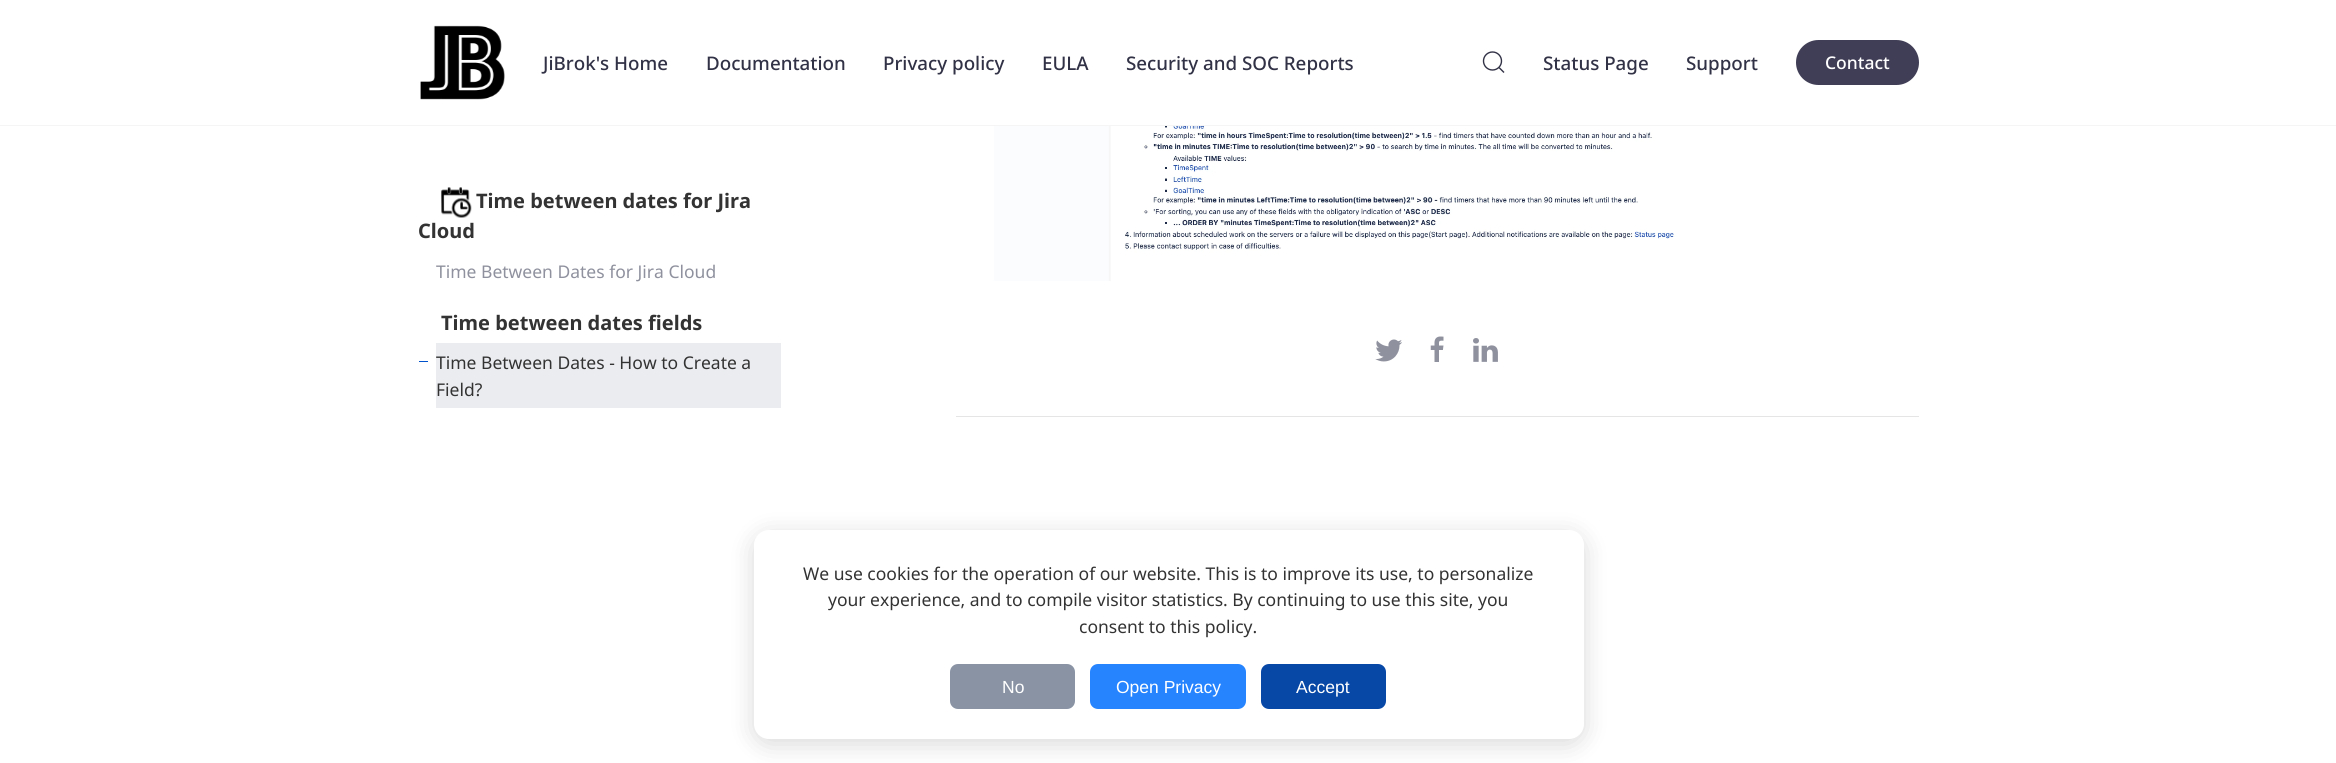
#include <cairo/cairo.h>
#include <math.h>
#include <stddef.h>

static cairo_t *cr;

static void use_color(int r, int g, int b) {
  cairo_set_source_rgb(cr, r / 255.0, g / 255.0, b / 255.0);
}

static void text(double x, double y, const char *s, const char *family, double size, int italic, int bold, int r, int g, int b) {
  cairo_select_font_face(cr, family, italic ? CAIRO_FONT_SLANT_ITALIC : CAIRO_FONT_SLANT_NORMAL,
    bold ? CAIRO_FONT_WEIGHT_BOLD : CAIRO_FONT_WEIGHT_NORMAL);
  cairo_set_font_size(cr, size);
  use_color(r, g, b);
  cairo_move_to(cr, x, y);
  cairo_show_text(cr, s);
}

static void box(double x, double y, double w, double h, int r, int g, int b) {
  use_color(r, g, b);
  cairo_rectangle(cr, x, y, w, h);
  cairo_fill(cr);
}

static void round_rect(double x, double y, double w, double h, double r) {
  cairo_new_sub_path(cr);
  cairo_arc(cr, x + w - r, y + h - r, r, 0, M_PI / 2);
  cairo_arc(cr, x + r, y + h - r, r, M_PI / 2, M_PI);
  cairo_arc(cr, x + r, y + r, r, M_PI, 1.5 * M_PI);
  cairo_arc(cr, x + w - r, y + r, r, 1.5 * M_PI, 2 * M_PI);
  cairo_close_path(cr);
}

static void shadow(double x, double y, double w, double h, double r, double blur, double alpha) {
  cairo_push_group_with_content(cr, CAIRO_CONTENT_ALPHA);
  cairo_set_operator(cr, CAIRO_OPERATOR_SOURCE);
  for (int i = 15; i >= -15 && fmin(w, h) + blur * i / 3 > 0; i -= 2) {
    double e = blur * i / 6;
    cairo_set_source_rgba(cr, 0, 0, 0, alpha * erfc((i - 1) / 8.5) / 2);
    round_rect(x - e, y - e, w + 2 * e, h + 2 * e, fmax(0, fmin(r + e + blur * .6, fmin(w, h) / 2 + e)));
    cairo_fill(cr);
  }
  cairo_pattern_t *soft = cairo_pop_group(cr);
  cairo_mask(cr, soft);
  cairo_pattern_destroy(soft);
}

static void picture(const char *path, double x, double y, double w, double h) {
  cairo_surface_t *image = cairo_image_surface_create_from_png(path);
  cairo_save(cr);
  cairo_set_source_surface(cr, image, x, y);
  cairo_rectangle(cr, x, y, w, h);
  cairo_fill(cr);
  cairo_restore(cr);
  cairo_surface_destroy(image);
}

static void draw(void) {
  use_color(255, 255, 255);
  cairo_paint(cr);
  box(0, 125, 2336, 1, 245, 245, 245);
  picture("img_01.png", 420, 25, 85, 75);
  cairo_arc(cr, 1492.5, 61, 9, 0, 2 * M_PI);
  use_color(50, 50, 71);
  cairo_set_line_width(cr, 1.4);
  cairo_stroke(cr);
  cairo_new_path(cr);
  cairo_move_to(cr, 1499, 67.5);
  cairo_line_to(cr, 1504, 72.5);
  cairo_close_path(cr);
  cairo_stroke(cr);
  use_color(64, 62, 86);
  round_rect(1796, 40, 123, 45, 22.5);
  cairo_fill(cr);
  picture("img_02.png", 441, 187, 31, 31);
  box(436, 343, 345, 65, 235, 236, 240);
  box(419, 361, 9, 1, 0, 82, 204);
  picture("img_03.png", 994, 126, 776, 155);
  picture("img_04.png", 1375, 339, 27, 23);
  picture("img_05.png", 1430, 336, 14, 26);
  picture("img_06.png", 1473, 338, 25, 24);
  box(956, 416, 963, 1, 229, 229, 229);
  use_color(0, 0, 0);
  shadow(754, 535, 830, 209, 15, 12.5, 0.15);
  use_color(255, 255, 255);
  round_rect(754, 530, 830, 209, 15);
  cairo_fill(cr);
  use_color(137, 147, 164);
  round_rect(950, 664, 125, 45, 8);
  cairo_fill(cr);
  use_color(38, 132, 255);
  round_rect(1090, 664, 156, 45, 8);
  cairo_fill(cr);
  use_color(7, 71, 166);
  round_rect(1261, 664, 125, 45, 8);
  cairo_fill(cr);
  text(543, 70, "JiBrok's Home", "Noto Sans Medium", 18.75, 0, 0, 50, 50, 71);
  text(706, 70, "Documentation", "Noto Sans Medium", 18.75, 0, 0, 50, 50, 71);
  text(883, 70, "Privacy policy", "Noto Sans Medium", 18.75, 0, 0, 50, 50, 71);
  text(1042, 70, "EULA", "Noto Sans Medium", 18.75, 0, 0, 50, 50, 71);
  text(1126, 70, "Security and SOC Reports", "Noto Sans Medium", 18.75, 0, 0, 50, 50, 71);
  text(1543, 70, "Status Page", "Noto Sans Medium", 18.75, 0, 0, 50, 50, 71);
  text(1686, 70, "Support", "Noto Sans Medium", 18.75, 0, 0, 50, 50, 71);
  text(1825, 69, "Contact", "Noto Sans Medium", 17.5, 0, 0, 255, 255, 255);
  text(476, 208, "Time between dates for Jira", "Noto Sans", 20, 0, 1, 51, 51, 51);
  text(418, 238, "Cloud", "Noto Sans", 20, 0, 1, 51, 51, 51);
  text(436, 278, "Time Between Dates for Jira Cloud", "Noto Sans", 17.5, 0, 0, 143, 145, 158);
  text(441, 330, "Time between dates fields", "Noto Sans", 20, 0, 1, 51, 51, 51);
  text(436, 369, "Time Between Dates - How to Create a", "Noto Sans", 17.5, 0, 0, 51, 51, 51);
  text(436, 396, "Field?", "Noto Sans", 17.5, 0, 0, 51, 51, 51);
  text(803, 580, "We use cookies for the operation of our website. This is to improve its use, to personalize", "Noto Sans", 17.5, 0, 0, 51, 51, 51);
  text(828, 606, "your experience, and to compile visitor statistics. By continuing to use this site, you", "Noto Sans", 17.5, 0, 0, 51, 51, 51);
  text(1079, 633, "consent to this policy.", "Noto Sans", 17.5, 0, 0, 51, 51, 51);
  text(1002, 693, "No", "Liberation Sans", 17.5, 0, 0, 255, 255, 255);
  text(1116, 693, "Open Privacy", "Liberation Sans", 17.5, 0, 0, 255, 255, 255);
  text(1296, 693, "Accept", "Liberation Sans", 17.5, 0, 0, 255, 255, 255);
}

int main(void) {
  cairo_surface_t *surface = cairo_image_surface_create(CAIRO_FORMAT_RGB24, 2336, 763);
  cr = cairo_create(surface);
  cairo_font_options_t *options = cairo_font_options_create();
  cairo_font_options_set_hint_metrics(options, CAIRO_HINT_METRICS_OFF);
  cairo_font_options_set_hint_style(options, CAIRO_HINT_STYLE_NONE);
  cairo_set_font_options(cr, options);
  cairo_set_miter_limit(cr, 4);
  draw();
  cairo_surface_write_to_png(surface, "out.png");
  cairo_font_options_destroy(options);
  cairo_destroy(cr);
  cairo_surface_destroy(surface);
  return 0;
}
